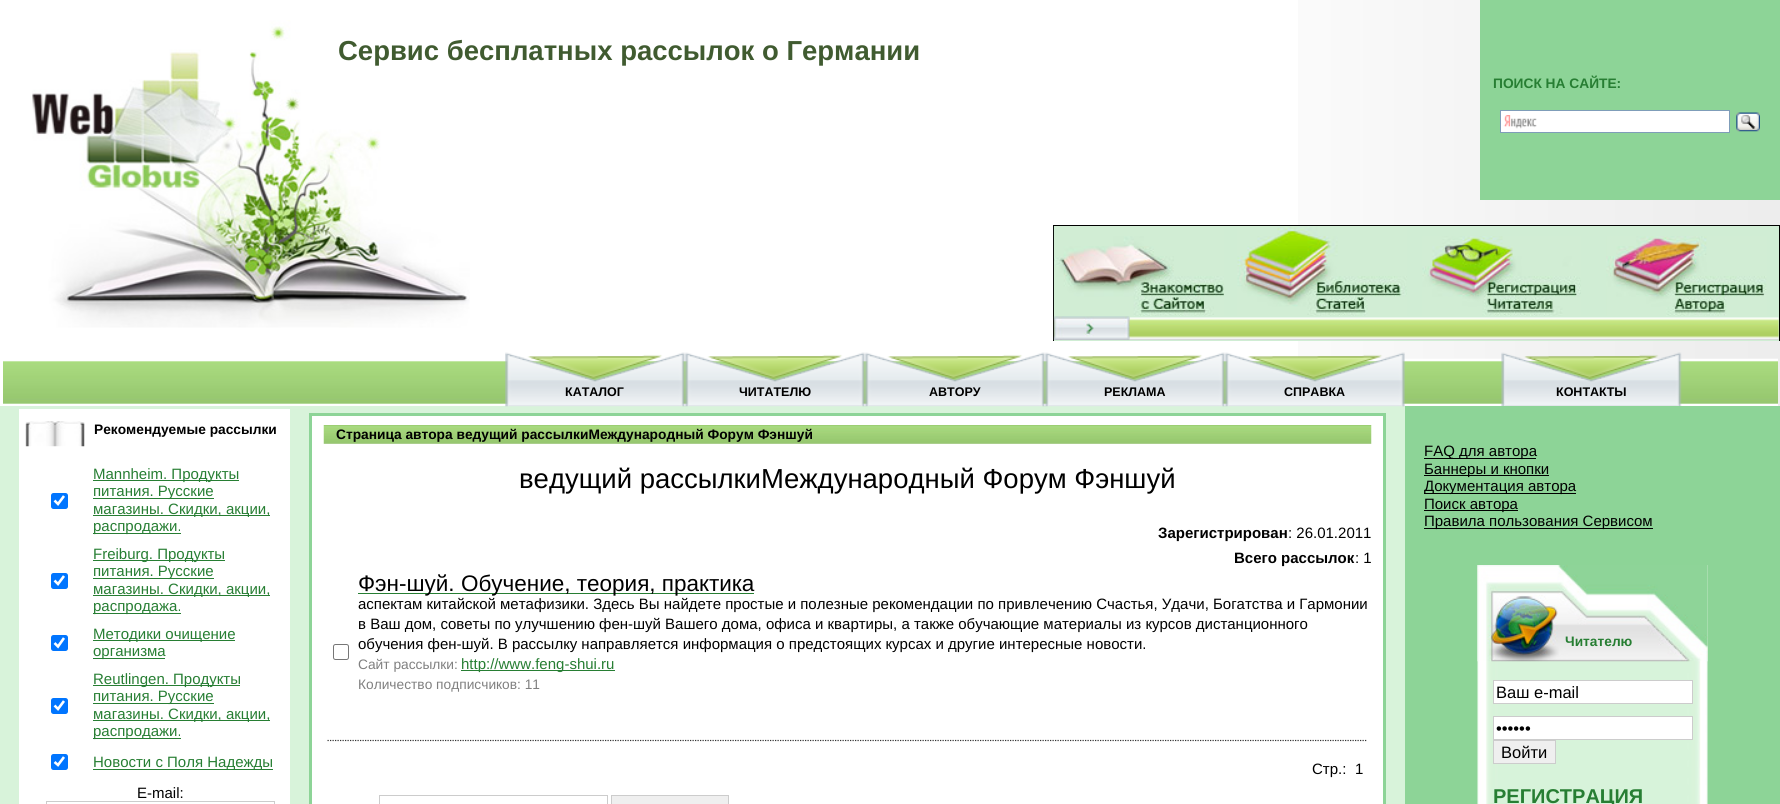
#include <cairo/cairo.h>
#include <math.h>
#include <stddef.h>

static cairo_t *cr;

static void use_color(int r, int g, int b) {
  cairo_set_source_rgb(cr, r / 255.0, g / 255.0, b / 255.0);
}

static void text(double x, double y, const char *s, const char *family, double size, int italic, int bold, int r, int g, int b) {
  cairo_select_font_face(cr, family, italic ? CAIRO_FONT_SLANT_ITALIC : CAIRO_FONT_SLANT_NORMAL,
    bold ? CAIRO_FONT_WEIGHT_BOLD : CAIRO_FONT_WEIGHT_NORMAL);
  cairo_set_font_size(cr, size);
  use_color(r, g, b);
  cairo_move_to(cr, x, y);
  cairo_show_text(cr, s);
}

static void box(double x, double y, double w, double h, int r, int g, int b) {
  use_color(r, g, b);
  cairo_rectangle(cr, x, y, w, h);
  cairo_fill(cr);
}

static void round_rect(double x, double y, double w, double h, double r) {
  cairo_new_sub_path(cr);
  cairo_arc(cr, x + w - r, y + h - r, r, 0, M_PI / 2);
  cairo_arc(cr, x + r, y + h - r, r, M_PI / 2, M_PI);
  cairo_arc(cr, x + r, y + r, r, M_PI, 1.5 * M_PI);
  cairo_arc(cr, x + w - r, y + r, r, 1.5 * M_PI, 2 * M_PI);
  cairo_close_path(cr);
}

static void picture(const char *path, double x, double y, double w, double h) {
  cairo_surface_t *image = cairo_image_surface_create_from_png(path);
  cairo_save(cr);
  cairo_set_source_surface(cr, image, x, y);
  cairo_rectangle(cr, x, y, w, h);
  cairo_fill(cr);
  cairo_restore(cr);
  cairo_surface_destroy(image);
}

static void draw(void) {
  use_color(255, 255, 255);
  cairo_paint(cr);
  picture("img_01.png", 1298, 0, 482, 359);
  picture("img_02.png", 32, 20, 438, 308);
  box(1480, 0, 300, 200, 141, 212, 151);
  box(1501, 111, 228, 21, 255, 255, 255);
  picture("img_03.png", 1503, 115, 34, 14);
  cairo_rectangle(cr, 1500.5, 110.5, 229, 22);
  use_color(127, 157, 185);
  cairo_set_line_width(cr, 1);
  cairo_stroke(cr);
  picture("img_04.png", 1736, 112, 24, 20);
  box(1054, 226, 725, 115, 208, 237, 212);
  box(1053, 225, 727, 1, 0, 0, 0);
  box(1779, 225, 1, 116, 0, 0, 0);
  box(1053, 225, 1, 116, 0, 0, 0);
  picture("img_05.png", 1053, 226, 171, 90);
  picture("img_06.png", 1237, 226, 170, 90);
  picture("img_07.png", 1422, 236, 159, 80);
  picture("img_08.png", 1606, 236, 161, 80);
  picture("img_09.png", 1053, 316, 726, 24);
  picture("img_10.png", 1053, 316, 77, 24);
  picture("img_11.png", 3, 358, 1775, 48);
  box(1778, 353, 2, 53, 237, 237, 237);
  box(0, 406, 1405, 398, 216, 243, 218);
  picture("img_12.png", 505, 352, 180, 55);
  picture("img_13.png", 685, 352, 180, 55);
  picture("img_14.png", 865, 352, 180, 55);
  picture("img_15.png", 1045, 352, 180, 55);
  picture("img_16.png", 1225, 352, 180, 55);
  picture("img_17.png", 1501, 352, 181, 54);
  box(19, 409, 271, 395, 255, 255, 255);
  picture("img_18.png", 25, 421, 60, 26);
  use_color(0, 117, 255);
  round_rect(51, 493, 17, 16, 2.5);
  cairo_fill(cr);
  cairo_new_path(cr);
  cairo_move_to(cr, 54.5, 500.5);
  cairo_line_to(cr, 58, 504);
  cairo_line_to(cr, 64, 496);
  use_color(255, 255, 255);
  cairo_set_line_width(cr, 2.6);
  cairo_stroke(cr);
  box(93, 480, 146, 1, 39, 126, 51);
  box(93, 498, 121, 1, 39, 126, 51);
  box(93, 515, 177, 1, 39, 126, 51);
  box(93, 533, 88, 1, 39, 126, 51);
  use_color(0, 117, 255);
  round_rect(51, 573, 17, 16, 2.5);
  cairo_fill(cr);
  cairo_new_path(cr);
  cairo_move_to(cr, 54.5, 580.5);
  cairo_line_to(cr, 58, 584);
  cairo_line_to(cr, 64, 576);
  use_color(255, 255, 255);
  cairo_stroke(cr);
  box(93, 560, 132, 1, 39, 126, 51);
  box(93, 578, 121, 1, 39, 126, 51);
  box(93, 595, 177, 1, 39, 126, 51);
  box(93, 613, 88, 1, 39, 126, 51);
  use_color(0, 117, 255);
  round_rect(51, 635, 17, 16, 2.5);
  cairo_fill(cr);
  cairo_new_path(cr);
  cairo_move_to(cr, 54.5, 643);
  cairo_line_to(cr, 58, 646.5);
  cairo_line_to(cr, 64, 638);
  use_color(255, 255, 255);
  cairo_stroke(cr);
  box(93, 640, 142, 1, 39, 126, 51);
  box(93, 658, 72, 1, 39, 126, 51);
  use_color(0, 117, 255);
  round_rect(51, 698, 17, 16, 2.5);
  cairo_fill(cr);
  cairo_new_path(cr);
  cairo_move_to(cr, 54.5, 705.5);
  cairo_line_to(cr, 58, 709);
  cairo_line_to(cr, 64, 701);
  use_color(255, 255, 255);
  cairo_stroke(cr);
  box(93, 685, 147, 1, 39, 126, 51);
  box(93, 703, 121, 1, 39, 126, 51);
  box(93, 720, 177, 1, 39, 126, 51);
  box(93, 738, 88, 1, 39, 126, 51);
  use_color(0, 117, 255);
  round_rect(51, 754, 17, 16, 2.5);
  cairo_fill(cr);
  cairo_new_path(cr);
  cairo_move_to(cr, 54.5, 762);
  cairo_line_to(cr, 58, 765);
  cairo_line_to(cr, 64, 757);
  use_color(255, 255, 255);
  cairo_stroke(cr);
  box(93, 769, 180, 1, 39, 126, 51);
  cairo_rectangle(cr, 46.5, 801.5, 228, 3);
  use_color(204, 204, 204);
  cairo_set_line_width(cr, 1);
  cairo_stroke(cr);
  use_color(255, 255, 255);
  cairo_rectangle(cr, 310.5, 414.5, 1074, 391);
  cairo_fill_preserve(cr);
  use_color(141, 212, 151);
  cairo_set_line_width(cr, 3);
  cairo_stroke(cr);
  picture("img_19.png", 323, 425, 1049, 19);
  round_rect(333.5, 644.5, 15, 15, 2);
  use_color(118, 118, 118);
  cairo_set_line_width(cr, 1);
  cairo_stroke(cr);
  box(358, 593, 396, 1, 39, 126, 51);
  box(461, 670, 154, 1, 39, 126, 51);
  cairo_new_path(cr);
  cairo_move_to(cr, 327.5, 740.5);
  cairo_line_to(cr, 1367.5, 740.5);
  use_color(51, 51, 51);
  cairo_set_line_width(cr, 1.2);
  cairo_set_dash(cr, (double[]){1.25, 1.25}, 2, 0);
  cairo_stroke(cr);
  cairo_rectangle(cr, 379.5, 795.5, 228, 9);
  use_color(204, 204, 204);
  cairo_set_line_width(cr, 1);
  cairo_set_dash(cr, NULL, 0, 0);
  cairo_stroke(cr);
  use_color(239, 239, 239);
  cairo_rectangle(cr, 611.5, 795.5, 117, 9);
  cairo_fill_preserve(cr);
  use_color(204, 204, 204);
  cairo_stroke(cr);
  box(1405, 406, 375, 398, 141, 212, 151);
  box(1424, 458, 112, 1, 0, 0, 0);
  box(1424, 475, 125, 1, 0, 0, 0);
  box(1424, 493, 152, 1, 0, 0, 0);
  box(1424, 510, 94, 1, 0, 0, 0);
  box(1424, 528, 229, 1, 0, 0, 0);
  picture("img_20.png", 1477, 565, 231, 239);
  picture("img_21.png", 1477, 565, 231, 97);
  use_color(255, 255, 255);
  cairo_rectangle(cr, 1493.5, 680.5, 199, 23);
  cairo_fill_preserve(cr);
  use_color(204, 204, 204);
  cairo_stroke(cr);
  use_color(255, 255, 255);
  cairo_rectangle(cr, 1493.5, 716.5, 199, 23);
  cairo_fill_preserve(cr);
  use_color(204, 204, 204);
  cairo_stroke(cr);
  use_color(239, 239, 239);
  cairo_rectangle(cr, 1493.5, 740.5, 62, 23);
  cairo_fill_preserve(cr);
  use_color(204, 204, 204);
  cairo_stroke(cr);
  text(338, 60, "Сервис бесплатных рассылок о Германии", "Liberation Sans", 27.5, 0, 1, 64, 91, 48);
  text(1493, 88, "ПОИСК НА САЙТЕ:", "Liberation Sans", 13.75, 0, 1, 39, 126, 51);
  text(565, 396, "КАТАЛОГ", "Liberation Sans", 12.5, 0, 1, 0, 0, 0);
  text(739, 396, "ЧИТАТЕЛЮ", "Liberation Sans", 12.5, 0, 1, 0, 0, 0);
  text(929, 396, "АВТОРУ", "Liberation Sans", 12.5, 0, 1, 0, 0, 0);
  text(1104, 396, "РЕКЛАМА", "Liberation Sans", 12.5, 0, 1, 0, 0, 0);
  text(1284, 396, "СПРАВКА", "Liberation Sans", 12.5, 0, 1, 0, 0, 0);
  text(1556, 396, "КОНТАКТЫ", "Liberation Sans", 12.5, 0, 1, 0, 0, 0);
  text(94, 434, "Рекомендуемые рассылки", "Liberation Sans", 13.75, 0, 1, 0, 0, 0);
  text(93, 479, "Mannheim. Продукты", "Liberation Sans", 15, 0, 0, 39, 126, 51);
  text(93, 496, "питания. Русские", "Liberation Sans", 15, 0, 0, 39, 126, 51);
  text(93, 514, "магазины. Скидки, акции,", "Liberation Sans", 15, 0, 0, 39, 126, 51);
  text(93, 531, "распродажи.", "Liberation Sans", 15, 0, 0, 39, 126, 51);
  text(93, 559, "Freiburg. Продукты", "Liberation Sans", 15, 0, 0, 39, 126, 51);
  text(93, 576, "питания. Русские", "Liberation Sans", 15, 0, 0, 39, 126, 51);
  text(93, 594, "магазины. Скидки, акции,", "Liberation Sans", 15, 0, 0, 39, 126, 51);
  text(93, 611, "распродажа.", "Liberation Sans", 15, 0, 0, 39, 126, 51);
  text(93, 639, "Методики очищение", "Liberation Sans", 15, 0, 0, 39, 126, 51);
  text(93, 656, "организма", "Liberation Sans", 15, 0, 0, 39, 126, 51);
  text(93, 684, "Reutlingen. Продукты", "Liberation Sans", 15, 0, 0, 39, 126, 51);
  text(93, 701, "питания. Русские", "Liberation Sans", 15, 0, 0, 39, 126, 51);
  text(93, 719, "магазины. Скидки, акции,", "Liberation Sans", 15, 0, 0, 39, 126, 51);
  text(93, 736, "распродажи.", "Liberation Sans", 15, 0, 0, 39, 126, 51);
  text(93, 767, "Новости с Поля Надежды", "Liberation Sans", 15, 0, 0, 39, 126, 51);
  text(137, 798, "E-mail:", "Liberation Sans", 15, 0, 0, 0, 0, 0);
  text(336, 439, "Страница автора ведущий рассылкиМеждународный Форум Фэншуй", "Liberation Sans", 13.75, 0, 1, 0, 0, 0);
  text(519, 488, "ведущий рассылкиМеждународный Форум Фэншуй", "Liberation Sans", 27.5, 0, 0, 0, 0, 0);
  text(1158, 538, "Зарегистрирован", "Liberation Sans", 15, 0, 1, 0, 0, 0);
  text(1288, 538, ": 26.01.2011", "Liberation Sans", 15, 0, 0, 0, 0, 0);
  text(1234, 563, "Всего рассылок", "Liberation Sans", 15, 0, 1, 0, 0, 0);
  text(1355, 563, ": 1", "Liberation Sans", 15, 0, 0, 0, 0, 0);
  text(358, 591, "Фэн-шуй. Обучение, теория, практика", "Liberation Sans", 22.5, 0, 0, 0, 0, 0);
  text(358, 609, "аспектам китайской метафизики. Здесь Вы найдете простые и полезные рекомендации по привлечению Счастья, Удачи, Богатства и Гармонии", "Liberation Sans", 15, 0, 0, 0, 0, 0);
  text(358, 629, "в Ваш дом, советы по улучшению фен-шуй Вашего дома, офиса и квартиры, а также обучающие материалы из курсов дистанционного", "Liberation Sans", 15, 0, 0, 0, 0, 0);
  text(358, 649, "обучения фен-шуй. В рассылку направляется информация о предстоящих курсах и другие интересные новости.", "Liberation Sans", 15, 0, 0, 0, 0, 0);
  text(358, 669, "Сайт рассылки:", "Liberation Sans", 13.75, 0, 0, 128, 128, 128);
  text(461, 669, "http://www.feng-shui.ru", "Liberation Sans", 15, 0, 0, 39, 126, 51);
  text(358, 689, "Количество подписчиков: 11", "Liberation Sans", 13.75, 0, 0, 128, 128, 128);
  text(1312, 774, "Стр.:", "Liberation Sans", 15, 0, 0, 0, 0, 0);
  text(1355, 774, "1", "Liberation Sans", 15, 0, 0, 0, 0, 0);
  text(1424, 456, "FAQ для автора", "Liberation Sans", 15, 0, 0, 0, 0, 0);
  text(1424, 474, "Баннеры и кнопки", "Liberation Sans", 15, 0, 0, 0, 0, 0);
  text(1424, 491, "Документация автора", "Liberation Sans", 15, 0, 0, 0, 0, 0);
  text(1424, 509, "Поиск автора", "Liberation Sans", 15, 0, 0, 0, 0, 0);
  text(1424, 526, "Правила пользования Сервисом", "Liberation Sans", 15, 0, 0, 0, 0, 0);
  text(1565, 646, "Читателю", "Liberation Sans", 13.75, 0, 1, 39, 126, 51);
  text(1496, 698, "Ваш e-mail", "Liberation Sans", 16.5, 0, 0, 0, 0, 0);
  text(1496, 734, "••••••", "Liberation Sans", 16.5, 0, 0, 0, 0, 0);
  text(1501, 758, "Войти", "Liberation Sans", 16.5, 0, 0, 0, 0, 0);
  text(1493, 803, "РЕГИСТРАЦИЯ", "Liberation Sans", 20, 0, 1, 39, 126, 51);
}

int main(void) {
  cairo_surface_t *surface = cairo_image_surface_create(CAIRO_FORMAT_RGB24, 1780, 804);
  cr = cairo_create(surface);
  cairo_font_options_t *options = cairo_font_options_create();
  cairo_font_options_set_hint_metrics(options, CAIRO_HINT_METRICS_OFF);
  cairo_font_options_set_hint_style(options, CAIRO_HINT_STYLE_NONE);
  cairo_set_font_options(cr, options);
  cairo_set_miter_limit(cr, 4);
  draw();
  cairo_surface_write_to_png(surface, "out.png");
  cairo_font_options_destroy(options);
  cairo_destroy(cr);
  cairo_surface_destroy(surface);
  return 0;
}
